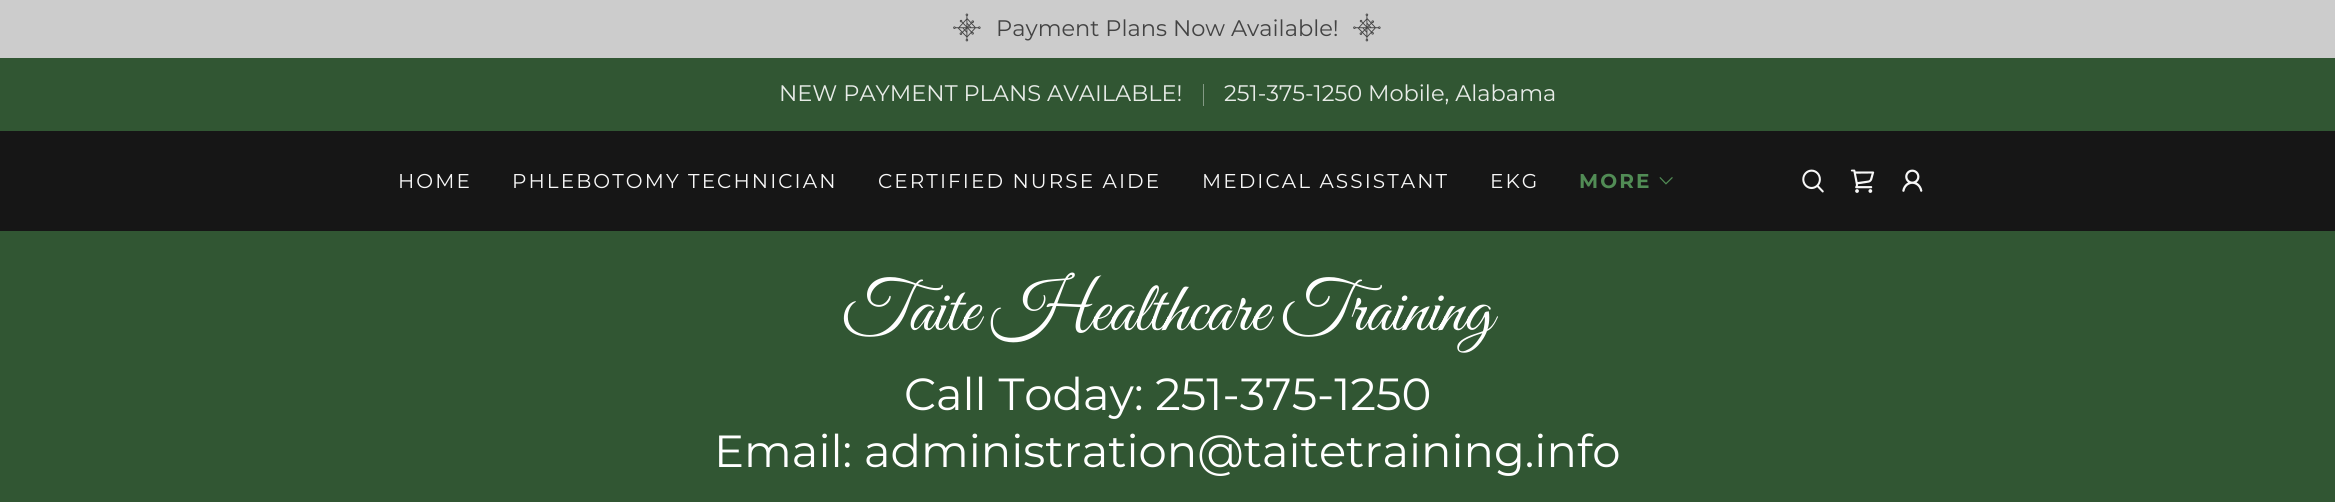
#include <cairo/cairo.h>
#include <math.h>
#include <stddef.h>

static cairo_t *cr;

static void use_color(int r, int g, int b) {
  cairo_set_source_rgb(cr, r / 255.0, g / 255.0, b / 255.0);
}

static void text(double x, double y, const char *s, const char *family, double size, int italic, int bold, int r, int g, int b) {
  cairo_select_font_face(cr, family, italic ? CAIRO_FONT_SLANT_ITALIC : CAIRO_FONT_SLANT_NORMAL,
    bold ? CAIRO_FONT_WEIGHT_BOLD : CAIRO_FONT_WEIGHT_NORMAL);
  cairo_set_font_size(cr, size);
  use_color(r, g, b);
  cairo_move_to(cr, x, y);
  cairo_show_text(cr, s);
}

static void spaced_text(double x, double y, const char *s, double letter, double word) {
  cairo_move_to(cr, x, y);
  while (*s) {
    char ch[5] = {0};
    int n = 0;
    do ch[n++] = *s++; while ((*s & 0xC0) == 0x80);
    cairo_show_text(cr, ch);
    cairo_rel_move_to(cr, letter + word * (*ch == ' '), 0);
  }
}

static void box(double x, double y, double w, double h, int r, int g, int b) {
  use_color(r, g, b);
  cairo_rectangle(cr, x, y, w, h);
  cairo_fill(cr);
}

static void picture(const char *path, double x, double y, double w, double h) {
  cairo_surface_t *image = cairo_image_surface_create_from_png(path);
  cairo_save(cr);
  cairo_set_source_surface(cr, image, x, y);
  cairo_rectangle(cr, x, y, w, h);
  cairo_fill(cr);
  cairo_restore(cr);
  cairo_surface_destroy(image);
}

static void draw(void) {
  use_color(49, 86, 51);
  cairo_paint(cr);
  box(0, 0, 2335, 58, 204, 204, 204);
  picture("img_01.png", 953, 13, 28, 29);
  picture("img_01.png", 1353, 13, 28, 29);
  box(1203, 84, 1, 22, 131, 154, 133);
  box(0, 131, 2335, 100, 22, 22, 22);
  picture("img_02.png", 1659, 177, 14, 8);
  picture("img_03.png", 1802, 169, 22, 24);
  picture("img_04.png", 1850, 169, 25, 24);
  picture("img_05.png", 1902, 169, 21, 23);
  text(996, 36, "Payment Plans Now Available!", "Montserrat", 22.5, 0, 0, 67, 67, 67);
  text(779, 101, "NEW PAYMENT PLANS AVAILABLE!", "Montserrat", 22.5, 0, 0, 232, 236, 232);
  text(1224, 101, "251-375-1250 Mobile, Alabama", "Montserrat", 22.5, 0, 0, 232, 236, 232);
  cairo_set_font_size(cr, 20);
  use_color(247, 247, 247);
  spaced_text(398, 188, "HOME", 2.1, 0);
  spaced_text(512, 188, "PHLEBOTOMY TECHNICIAN", 2.1, 0);
  spaced_text(878, 188, "CERTIFIED NURSE AIDE", 2.1, 0);
  spaced_text(1202, 188, "MEDICAL ASSISTANT", 2.1, 0);
  spaced_text(1490, 188, "EKG", 2.1, 0);
  cairo_select_font_face(cr, "Montserrat", CAIRO_FONT_SLANT_NORMAL, CAIRO_FONT_WEIGHT_BOLD);
  use_color(81, 140, 85);
  spaced_text(1579, 188, "MORE", 2.1, 0);
  text(842, 330, "Taite Healthcare Training", "Great Vibes", 71.25, 0, 0, 255, 255, 255);
  text(904, 410, "Call Today: 251-375-1250", "Montserrat", 45, 0, 0, 255, 255, 255);
  text(714, 467, "Email: administration@taitetraining.info", "Montserrat", 45, 0, 0, 255, 255, 255);
}

int main(void) {
  cairo_surface_t *surface = cairo_image_surface_create(CAIRO_FORMAT_RGB24, 2335, 502);
  cr = cairo_create(surface);
  cairo_font_options_t *options = cairo_font_options_create();
  cairo_font_options_set_hint_metrics(options, CAIRO_HINT_METRICS_OFF);
  cairo_font_options_set_hint_style(options, CAIRO_HINT_STYLE_NONE);
  cairo_set_font_options(cr, options);
  cairo_set_miter_limit(cr, 4);
  draw();
  cairo_surface_write_to_png(surface, "out.png");
  cairo_font_options_destroy(options);
  cairo_destroy(cr);
  cairo_surface_destroy(surface);
  return 0;
}
